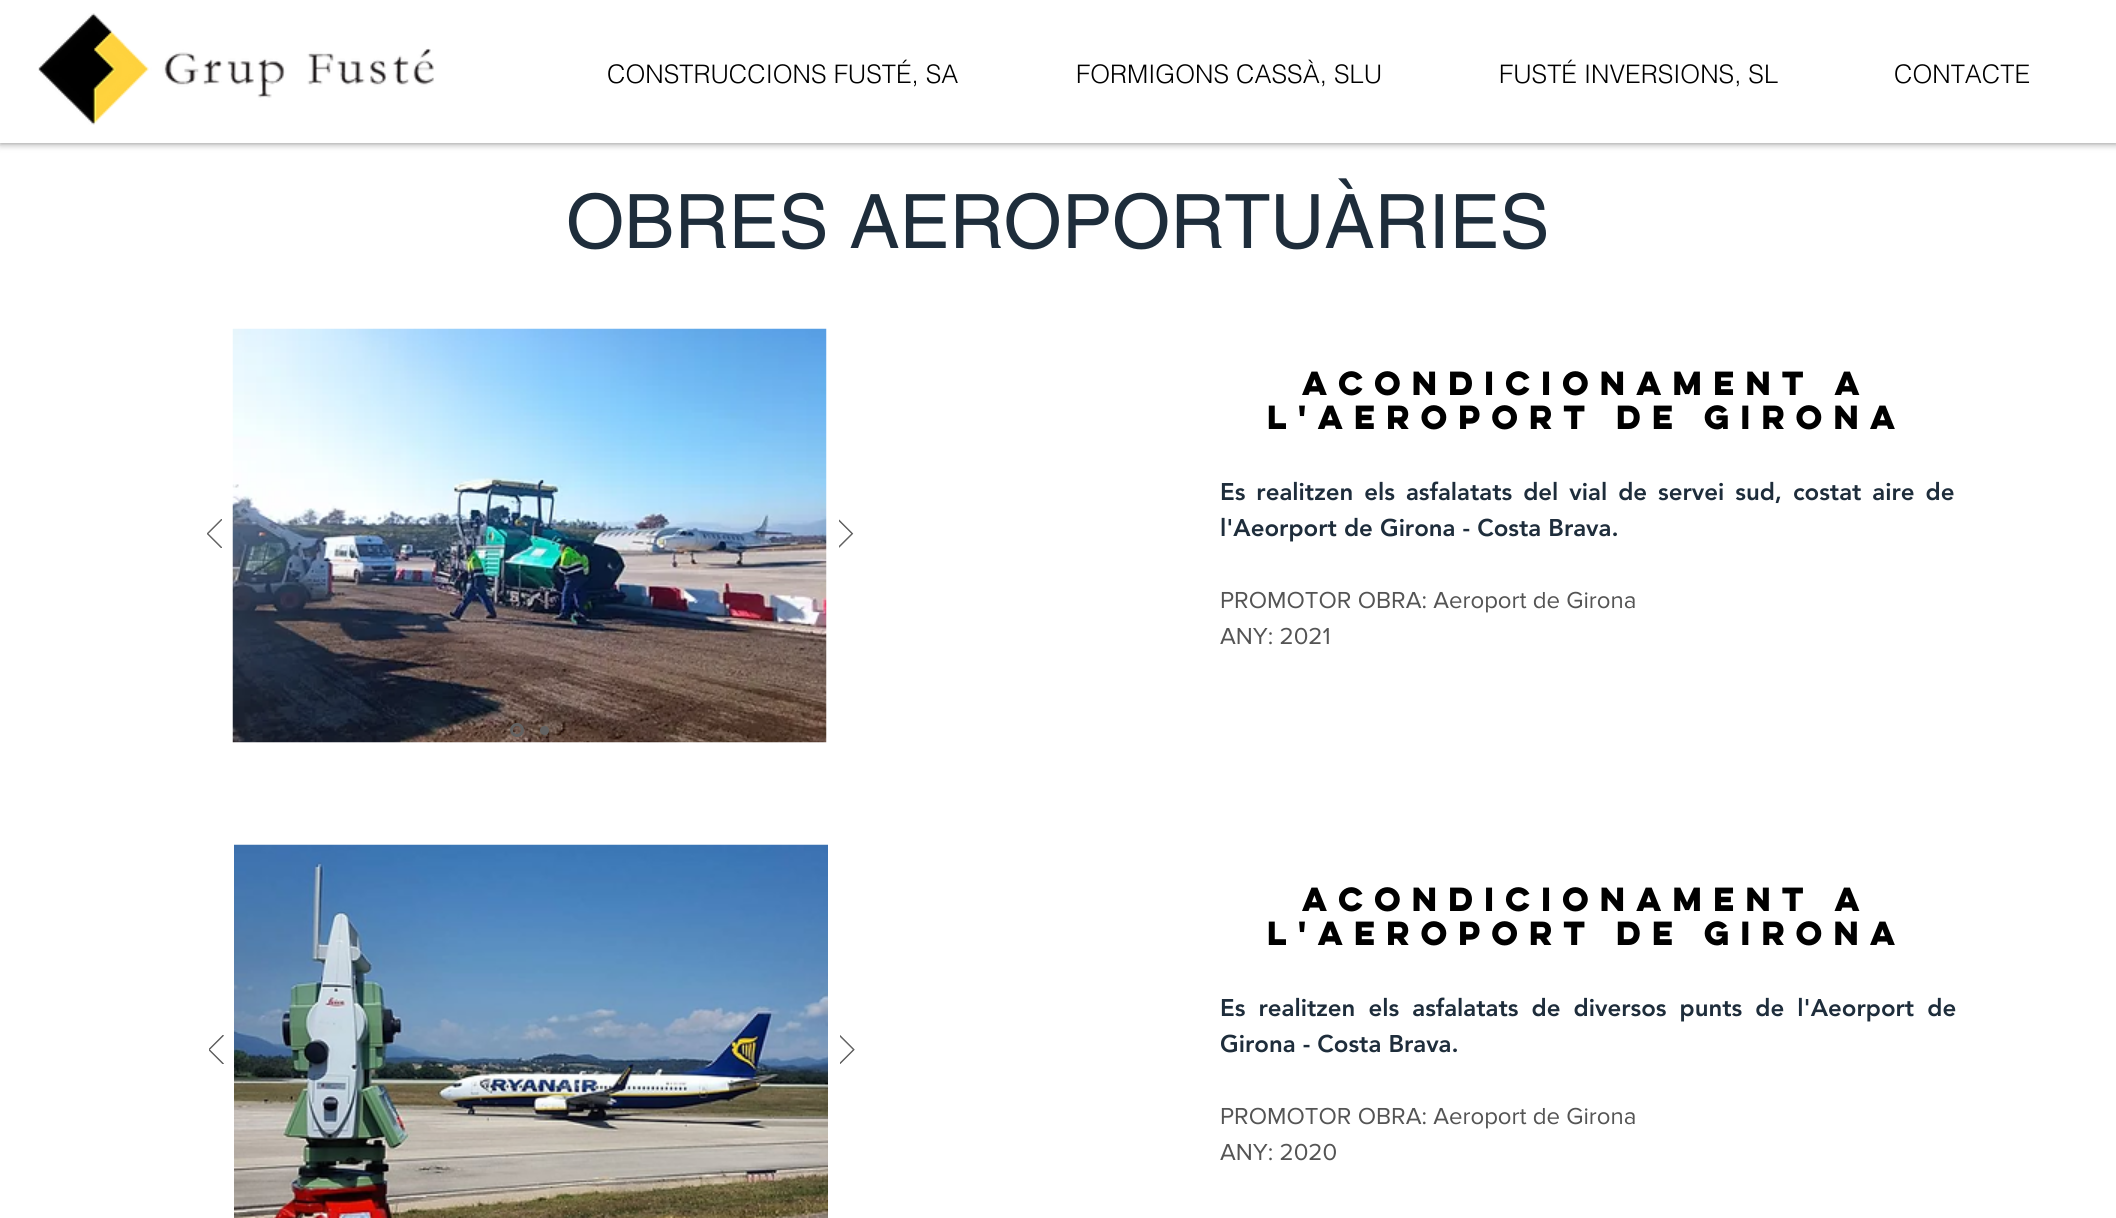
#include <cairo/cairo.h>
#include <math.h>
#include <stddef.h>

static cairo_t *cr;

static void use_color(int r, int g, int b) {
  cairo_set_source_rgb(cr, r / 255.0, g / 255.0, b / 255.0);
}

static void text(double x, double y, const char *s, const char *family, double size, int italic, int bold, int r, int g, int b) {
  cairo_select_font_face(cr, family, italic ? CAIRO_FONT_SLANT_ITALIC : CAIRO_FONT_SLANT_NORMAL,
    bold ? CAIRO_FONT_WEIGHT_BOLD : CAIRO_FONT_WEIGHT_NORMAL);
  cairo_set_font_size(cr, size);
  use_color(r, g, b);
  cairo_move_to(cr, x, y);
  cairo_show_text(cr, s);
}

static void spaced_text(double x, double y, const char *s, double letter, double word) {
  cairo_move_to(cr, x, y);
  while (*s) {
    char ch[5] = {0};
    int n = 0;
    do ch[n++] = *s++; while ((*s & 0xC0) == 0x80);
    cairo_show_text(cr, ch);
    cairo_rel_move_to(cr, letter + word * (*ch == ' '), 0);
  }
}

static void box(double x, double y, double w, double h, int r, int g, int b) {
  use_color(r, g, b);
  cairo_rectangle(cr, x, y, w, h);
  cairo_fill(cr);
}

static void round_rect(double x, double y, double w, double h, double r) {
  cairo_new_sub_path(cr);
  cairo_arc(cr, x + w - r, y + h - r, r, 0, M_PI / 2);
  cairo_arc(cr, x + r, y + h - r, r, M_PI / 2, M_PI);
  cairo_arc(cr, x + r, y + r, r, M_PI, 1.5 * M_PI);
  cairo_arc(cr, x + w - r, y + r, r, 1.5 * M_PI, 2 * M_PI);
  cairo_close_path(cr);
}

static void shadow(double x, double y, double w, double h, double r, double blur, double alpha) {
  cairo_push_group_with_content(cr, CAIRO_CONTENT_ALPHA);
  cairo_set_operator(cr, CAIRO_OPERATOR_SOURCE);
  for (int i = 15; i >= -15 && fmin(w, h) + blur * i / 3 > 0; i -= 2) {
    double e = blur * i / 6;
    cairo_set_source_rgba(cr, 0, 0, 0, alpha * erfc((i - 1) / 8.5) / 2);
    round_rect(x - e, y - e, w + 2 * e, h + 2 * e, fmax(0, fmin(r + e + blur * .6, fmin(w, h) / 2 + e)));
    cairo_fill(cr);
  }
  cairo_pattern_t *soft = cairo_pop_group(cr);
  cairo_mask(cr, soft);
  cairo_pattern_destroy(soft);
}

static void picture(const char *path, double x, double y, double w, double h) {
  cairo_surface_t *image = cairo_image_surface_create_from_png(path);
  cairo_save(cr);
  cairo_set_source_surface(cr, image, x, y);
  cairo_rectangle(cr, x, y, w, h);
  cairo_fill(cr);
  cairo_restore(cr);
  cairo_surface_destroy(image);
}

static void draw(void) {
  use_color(255, 255, 255);
  cairo_paint(cr);
  use_color(0, 0, 0);
  shadow(0, 0, 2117, 143, 0, 4, 0.5);
  box(0, 0, 2116, 143, 255, 255, 255);
  picture("img_01.png", 38, 13, 396, 112);
  picture("img_02.png", 207, 519, 15, 29);
  picture("img_03.png", 232, 328, 595, 415);
  picture("img_04.png", 839, 519, 15, 29);
  cairo_arc(cr, 517, 730, 5.5, 0, 2 * M_PI);
  use_color(98, 98, 98);
  cairo_set_line_width(cr, 3);
  cairo_stroke(cr);
  cairo_arc(cr, 544.5, 730.5, 4.5, 0, 2 * M_PI);
  cairo_fill(cr);
  picture("img_05.png", 209, 1035, 15, 29);
  picture("img_06.png", 234, 844, 594, 374);
  picture("img_07.png", 840, 1035, 15, 29);
  text(607, 83, "CONSTRUCCIONS FUSTÉ, SA", "helvetica Light", 25.5, 0, 0, 0, 0, 0);
  text(1076, 83, "FORMIGONS CASSÀ, SLU", "helvetica Light", 25.5, 0, 0, 0, 0, 0);
  text(1499, 83, "FUSTÉ INVERSIONS, SL", "helvetica Light", 25.5, 0, 0, 0, 0, 0);
  text(1894, 83, "CONTACTE", "helvetica Light", 25.5, 0, 0, 0, 0, 0);
  text(566, 248, "OBRES AEROPORTUÀRIES", "helvetica", 75, 0, 0, 30, 45, 59);
  cairo_select_font_face(cr, "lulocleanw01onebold", CAIRO_FONT_SLANT_NORMAL, CAIRO_FONT_WEIGHT_BOLD);
  cairo_set_font_size(cr, 30);
  use_color(0, 0, 0);
  spaced_text(1302, 395, "ACONDICIONAMENT A", 4.5, 0);
  spaced_text(1267, 429, "L'AEROPORT DE GIRONA", 4.5, 0);
  cairo_select_font_face(cr, "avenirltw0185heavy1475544 Black", CAIRO_FONT_SLANT_NORMAL, CAIRO_FONT_WEIGHT_NORMAL);
  cairo_set_font_size(cr, 24);
  use_color(30, 45, 59);
  spaced_text(1220, 500, "Es realitzen els asfalatats del vial de servei sud, costat aire de", 0, 3.9);
  text(1220, 536, "l'Aeorport de Girona - Costa Brava.", "avenirltw0185heavy1475544 Black", 24, 0, 0, 30, 45, 59);
  text(1220, 608, "PROMOTOR OBRA: Aeroport de Girona", "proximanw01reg", 24, 0, 0, 84, 84, 84);
  text(1220, 644, "ANY: 2021", "proximanw01reg", 24, 0, 0, 84, 84, 84);
  cairo_select_font_face(cr, "lulocleanw01onebold", CAIRO_FONT_SLANT_NORMAL, CAIRO_FONT_WEIGHT_BOLD);
  cairo_set_font_size(cr, 30);
  use_color(0, 0, 0);
  spaced_text(1302, 911, "ACONDICIONAMENT A", 4.5, 0);
  spaced_text(1267, 945, "L'AEROPORT DE GIRONA", 4.5, 0);
  cairo_select_font_face(cr, "avenirltw0185heavy1475544 Black", CAIRO_FONT_SLANT_NORMAL, CAIRO_FONT_WEIGHT_NORMAL);
  cairo_set_font_size(cr, 24);
  use_color(30, 45, 59);
  spaced_text(1220, 1016, "Es realitzen els asfalatats de diversos punts de l'Aeorport de", 0, 6);
  text(1220, 1052, "Girona - Costa Brava.", "avenirltw0185heavy1475544 Black", 24, 0, 0, 30, 45, 59);
  text(1220, 1124, "PROMOTOR OBRA: Aeroport de Girona", "proximanw01reg", 24, 0, 0, 84, 84, 84);
  text(1220, 1160, "ANY: 2020", "proximanw01reg", 24, 0, 0, 84, 84, 84);
}

int main(void) {
  cairo_surface_t *surface = cairo_image_surface_create(CAIRO_FORMAT_RGB24, 2116, 1218);
  cr = cairo_create(surface);
  cairo_font_options_t *options = cairo_font_options_create();
  cairo_font_options_set_hint_metrics(options, CAIRO_HINT_METRICS_OFF);
  cairo_font_options_set_hint_style(options, CAIRO_HINT_STYLE_NONE);
  cairo_set_font_options(cr, options);
  cairo_set_miter_limit(cr, 4);
  draw();
  cairo_surface_write_to_png(surface, "out.png");
  cairo_font_options_destroy(options);
  cairo_destroy(cr);
  cairo_surface_destroy(surface);
  return 0;
}
